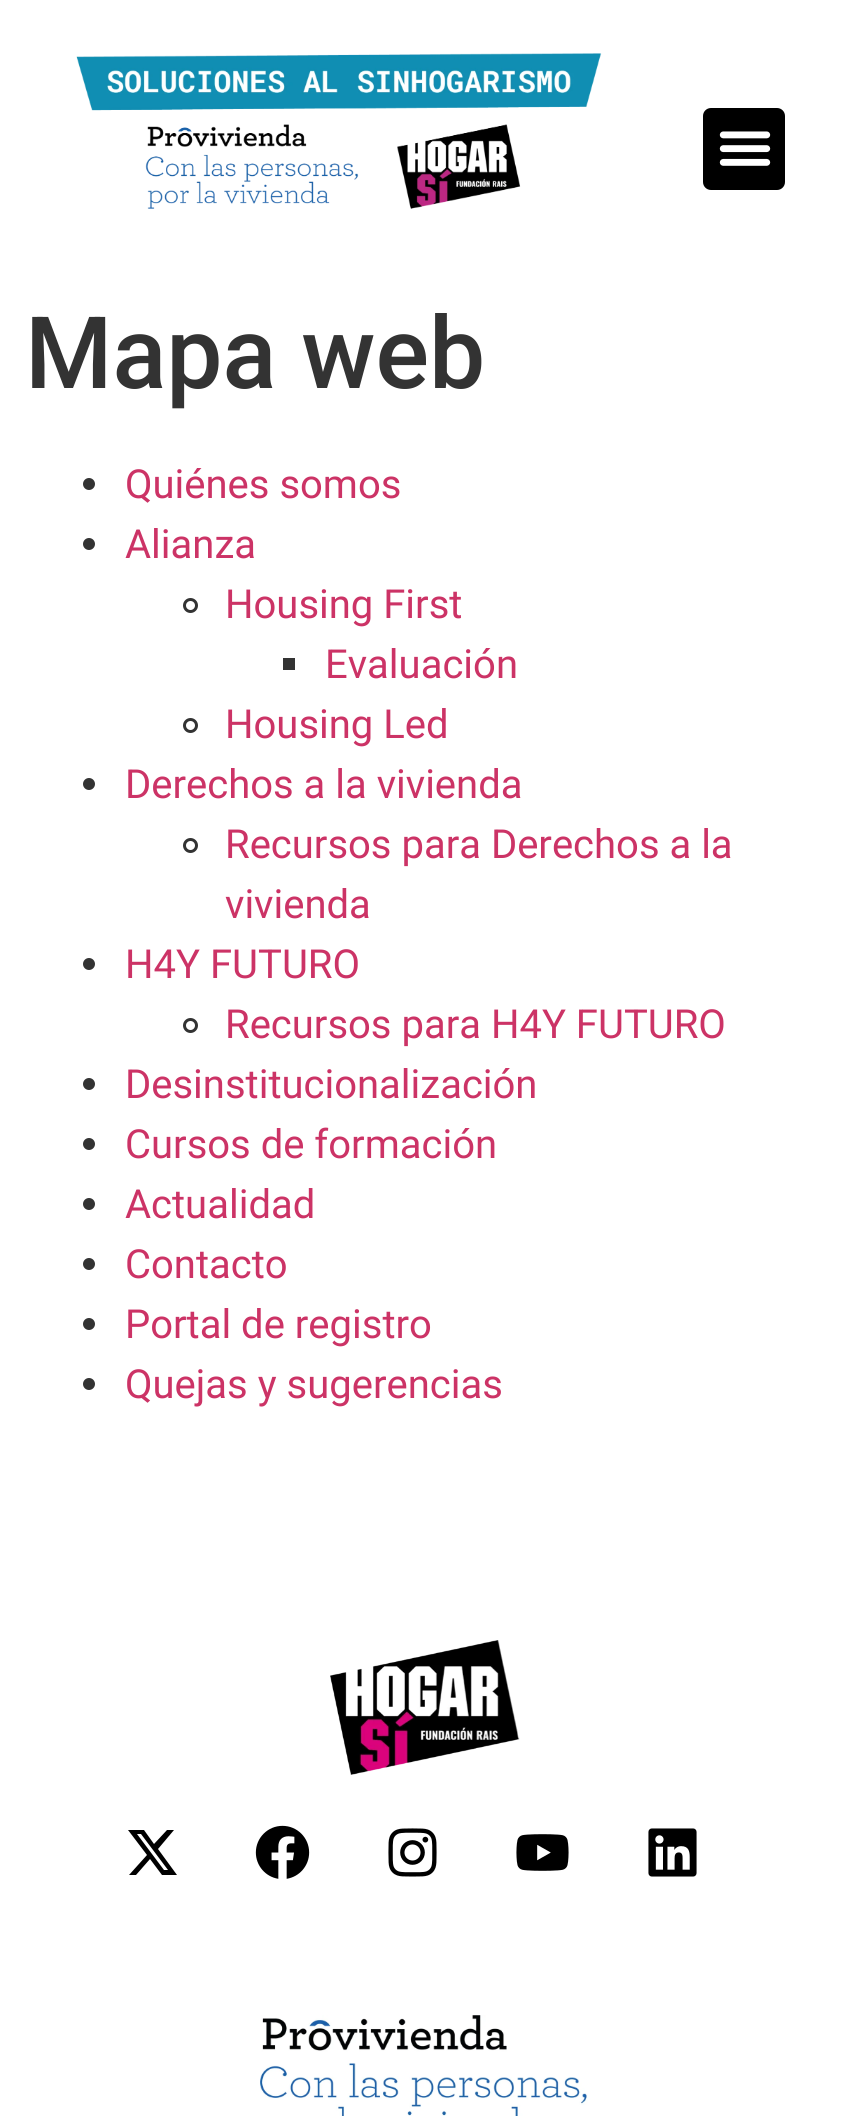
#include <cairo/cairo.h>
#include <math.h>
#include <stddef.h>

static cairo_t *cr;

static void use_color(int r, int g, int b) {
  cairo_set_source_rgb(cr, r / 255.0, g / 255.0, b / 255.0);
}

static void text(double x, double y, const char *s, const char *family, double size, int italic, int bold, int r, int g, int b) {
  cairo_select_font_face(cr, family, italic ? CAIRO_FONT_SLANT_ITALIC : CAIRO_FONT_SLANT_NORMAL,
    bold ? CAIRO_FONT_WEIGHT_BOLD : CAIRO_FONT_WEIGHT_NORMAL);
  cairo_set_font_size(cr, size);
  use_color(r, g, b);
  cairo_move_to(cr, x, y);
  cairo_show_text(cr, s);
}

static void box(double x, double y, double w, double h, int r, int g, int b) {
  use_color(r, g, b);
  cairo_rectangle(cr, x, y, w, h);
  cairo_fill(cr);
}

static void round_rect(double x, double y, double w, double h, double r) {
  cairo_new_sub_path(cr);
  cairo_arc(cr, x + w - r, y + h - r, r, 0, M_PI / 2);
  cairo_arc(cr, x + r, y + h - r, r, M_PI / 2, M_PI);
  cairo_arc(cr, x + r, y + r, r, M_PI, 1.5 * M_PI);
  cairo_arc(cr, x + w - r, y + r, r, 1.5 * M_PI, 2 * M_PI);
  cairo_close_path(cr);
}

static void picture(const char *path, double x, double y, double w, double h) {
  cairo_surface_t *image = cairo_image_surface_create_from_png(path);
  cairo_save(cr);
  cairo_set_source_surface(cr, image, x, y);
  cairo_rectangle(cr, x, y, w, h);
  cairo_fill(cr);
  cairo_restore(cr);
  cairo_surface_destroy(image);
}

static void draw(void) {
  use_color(255, 255, 255);
  cairo_paint(cr);
  picture("img_01.png", 76, 53, 526, 156);
  use_color(0, 0, 0);
  round_rect(703, 108, 82, 82, 8);
  cairo_fill(cr);
  picture("img_02.png", 719, 131, 52, 35);
  use_color(51, 51, 51);
  cairo_arc(cr, 89, 484, 6, 0, 2 * M_PI);
  cairo_fill(cr);
  cairo_arc(cr, 89, 544, 6, 0, 2 * M_PI);
  cairo_fill(cr);
  cairo_arc(cr, 190.5, 605.5, 6, 0, 2 * M_PI);
  cairo_set_line_width(cr, 3);
  cairo_stroke(cr);
  box(283, 658, 12, 12, 51, 51, 51);
  cairo_arc(cr, 190.5, 725.5, 6, 0, 2 * M_PI);
  cairo_stroke(cr);
  cairo_arc(cr, 89, 784, 6, 0, 2 * M_PI);
  cairo_fill(cr);
  cairo_arc(cr, 190.5, 845.5, 6, 0, 2 * M_PI);
  cairo_stroke(cr);
  cairo_arc(cr, 89, 964, 6, 0, 2 * M_PI);
  cairo_fill(cr);
  cairo_arc(cr, 190.5, 1025.5, 6, 0, 2 * M_PI);
  cairo_stroke(cr);
  cairo_arc(cr, 89, 1084, 6, 0, 2 * M_PI);
  cairo_fill(cr);
  cairo_arc(cr, 89, 1144, 6, 0, 2 * M_PI);
  cairo_fill(cr);
  cairo_arc(cr, 89, 1204, 6, 0, 2 * M_PI);
  cairo_fill(cr);
  cairo_arc(cr, 89, 1264, 6, 0, 2 * M_PI);
  cairo_fill(cr);
  cairo_arc(cr, 89, 1324, 6, 0, 2 * M_PI);
  cairo_fill(cr);
  cairo_arc(cr, 89, 1384, 6, 0, 2 * M_PI);
  cairo_fill(cr);
  picture("img_03.png", 330, 1640, 190, 135);
  use_color(0, 0, 0);
  cairo_new_path(cr);
  cairo_move_to(cr, 167, 1830);
  cairo_line_to(cr, 174, 1830);
  cairo_line_to(cr, 158, 1849);
  cairo_line_to(cr, 177, 1875);
  cairo_line_to(cr, 162, 1875);
  cairo_line_to(cr, 150, 1859);
  cairo_line_to(cr, 136, 1875);
  cairo_line_to(cr, 129, 1875);
  cairo_line_to(cr, 147, 1855);
  cairo_line_to(cr, 128, 1830);
  cairo_line_to(cr, 144, 1830);
  cairo_line_to(cr, 154, 1844);
  cairo_close_path(cr);
  cairo_move_to(cr, 164, 1870);
  cairo_line_to(cr, 168, 1870);
  cairo_line_to(cr, 141, 1834);
  cairo_line_to(cr, 137, 1834);
  cairo_close_path(cr);
  cairo_fill(cr);
  picture("img_04.png", 255, 1825, 55, 54);
  picture("img_05.png", 388, 1828, 49, 49);
  picture("img_06.png", 516, 1834, 53, 37);
  picture("img_07.png", 648, 1828, 49, 49);
  picture("img_08.png", 260, 2015, 328, 101);
  text(25, 388, "Mapa web", "Roboto Medium", 100, 0, 0, 51, 51, 51);
  text(125, 498, "Quiénes somos", "Roboto", 40, 0, 0, 204, 51, 102);
  text(125, 558, "Alianza", "Roboto", 40, 0, 0, 204, 51, 102);
  text(225, 618, "Housing First", "Roboto", 40, 0, 0, 204, 51, 102);
  text(325, 678, "Evaluación", "Roboto", 40, 0, 0, 204, 51, 102);
  text(225, 738, "Housing Led", "Roboto", 40, 0, 0, 204, 51, 102);
  text(125, 798, "Derechos a la vivienda", "Roboto", 40, 0, 0, 204, 51, 102);
  text(225, 858, "Recursos para Derechos a la", "Roboto", 40, 0, 0, 204, 51, 102);
  text(225, 918, "vivienda", "Roboto", 40, 0, 0, 204, 51, 102);
  text(125, 978, "H4Y FUTURO", "Roboto", 40, 0, 0, 204, 51, 102);
  text(225, 1038, "Recursos para H4Y FUTURO", "Roboto", 40, 0, 0, 204, 51, 102);
  text(125, 1098, "Desinstitucionalización", "Roboto", 40, 0, 0, 204, 51, 102);
  text(125, 1158, "Cursos de formación", "Roboto", 40, 0, 0, 204, 51, 102);
  text(125, 1218, "Actualidad", "Roboto", 40, 0, 0, 204, 51, 102);
  text(125, 1278, "Contacto", "Roboto", 40, 0, 0, 204, 51, 102);
  text(125, 1338, "Portal de registro", "Roboto", 40, 0, 0, 204, 51, 102);
  text(125, 1398, "Quejas y sugerencias", "Roboto", 40, 0, 0, 204, 51, 102);
}

int main(void) {
  cairo_surface_t *surface = cairo_image_surface_create(CAIRO_FORMAT_RGB24, 846, 2116);
  cr = cairo_create(surface);
  cairo_font_options_t *options = cairo_font_options_create();
  cairo_font_options_set_hint_metrics(options, CAIRO_HINT_METRICS_OFF);
  cairo_font_options_set_hint_style(options, CAIRO_HINT_STYLE_NONE);
  cairo_set_font_options(cr, options);
  cairo_set_miter_limit(cr, 4);
  draw();
  cairo_surface_write_to_png(surface, "out.png");
  cairo_font_options_destroy(options);
  cairo_destroy(cr);
  cairo_surface_destroy(surface);
  return 0;
}
